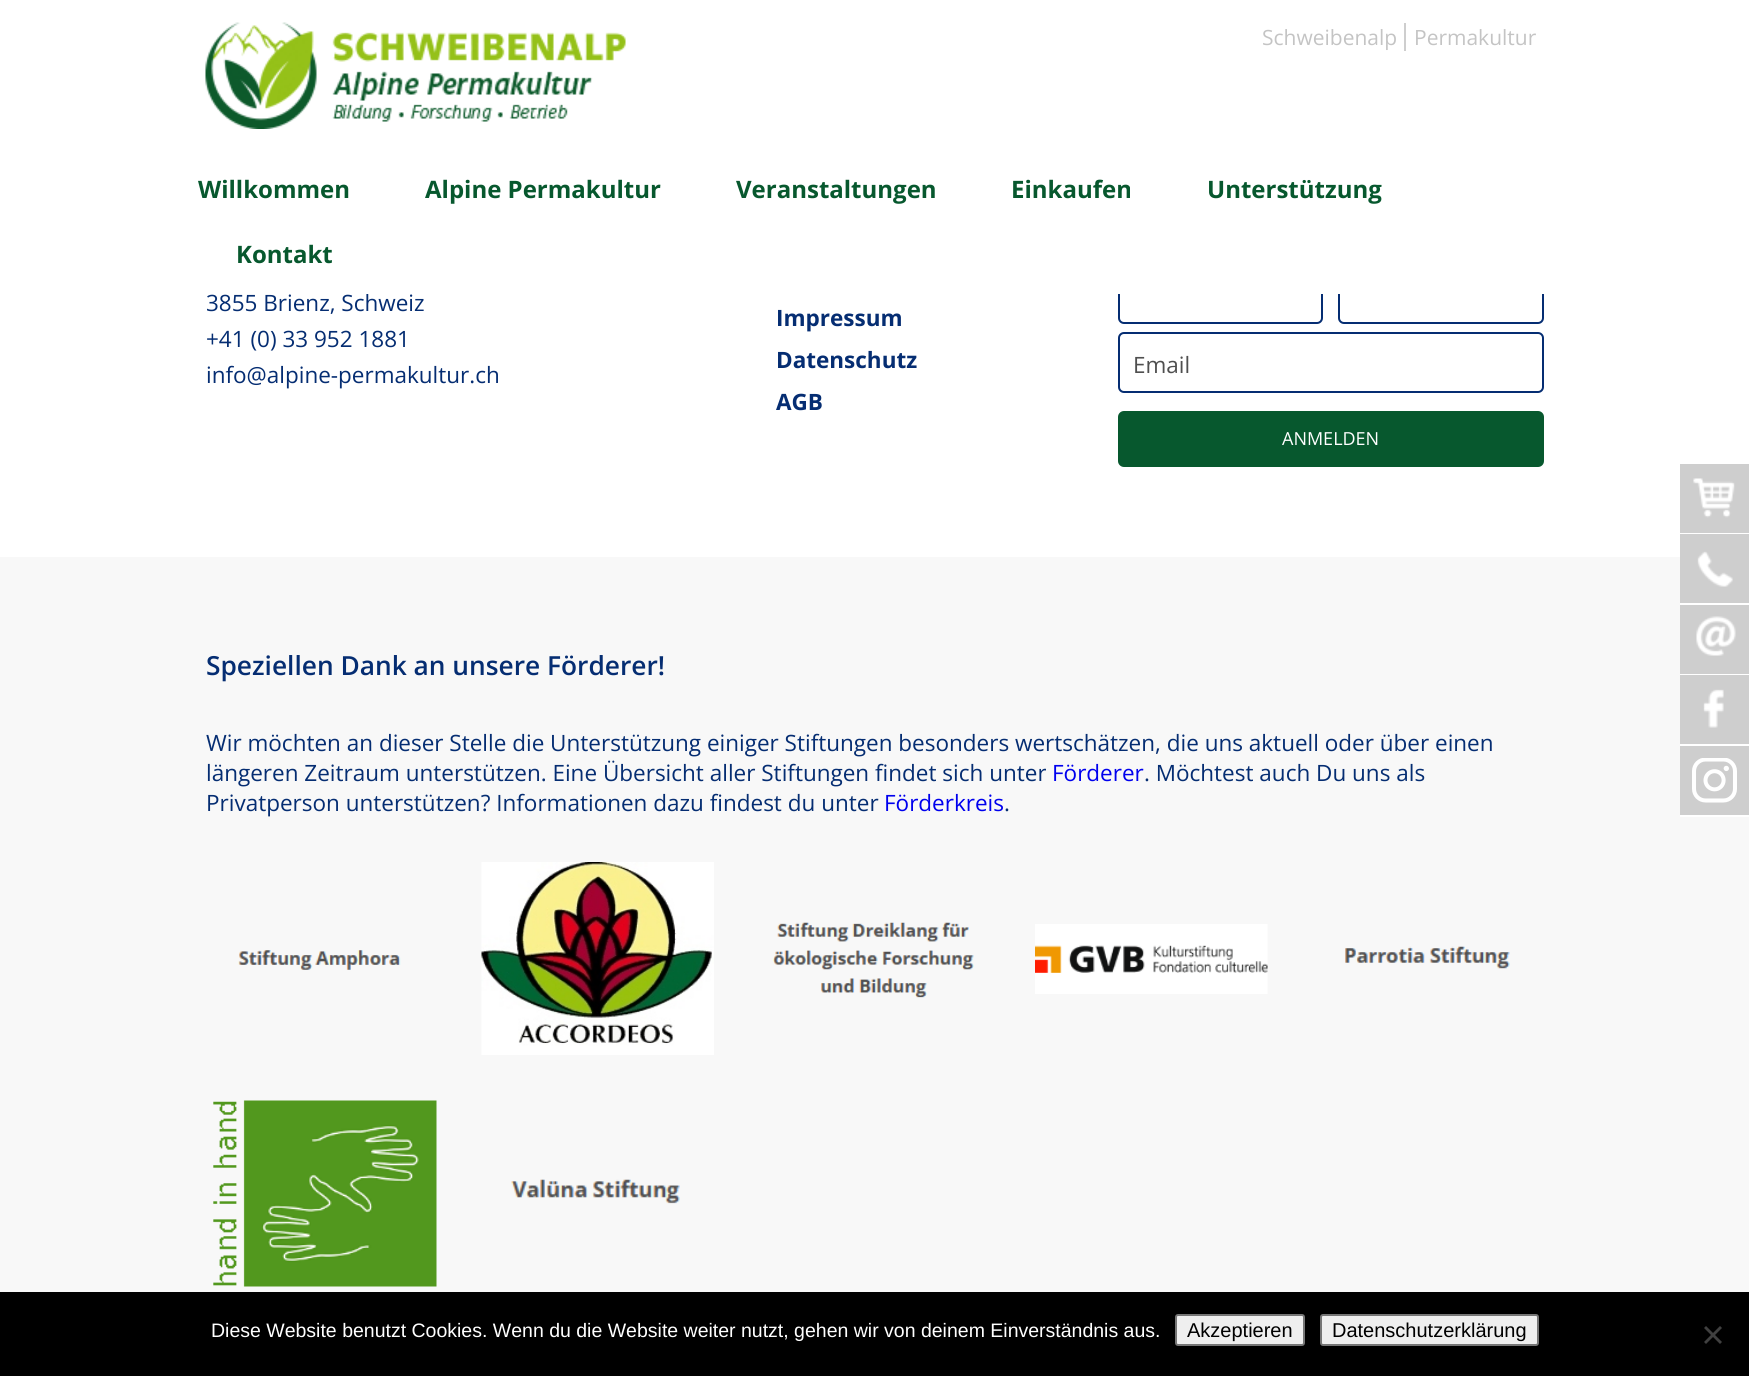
#include <cairo/cairo.h>
#include <math.h>
#include <stddef.h>

static cairo_t *cr;

static void use_color(int r, int g, int b) {
  cairo_set_source_rgb(cr, r / 255.0, g / 255.0, b / 255.0);
}

static void text(double x, double y, const char *s, const char *family, double size, int italic, int bold, int r, int g, int b) {
  cairo_select_font_face(cr, family, italic ? CAIRO_FONT_SLANT_ITALIC : CAIRO_FONT_SLANT_NORMAL,
    bold ? CAIRO_FONT_WEIGHT_BOLD : CAIRO_FONT_WEIGHT_NORMAL);
  cairo_set_font_size(cr, size);
  use_color(r, g, b);
  cairo_move_to(cr, x, y);
  cairo_show_text(cr, s);
}

static void box(double x, double y, double w, double h, int r, int g, int b) {
  use_color(r, g, b);
  cairo_rectangle(cr, x, y, w, h);
  cairo_fill(cr);
}

static void round_rect(double x, double y, double w, double h, double r) {
  cairo_new_sub_path(cr);
  cairo_arc(cr, x + w - r, y + h - r, r, 0, M_PI / 2);
  cairo_arc(cr, x + r, y + h - r, r, M_PI / 2, M_PI);
  cairo_arc(cr, x + r, y + r, r, M_PI, 1.5 * M_PI);
  cairo_arc(cr, x + w - r, y + r, r, 1.5 * M_PI, 2 * M_PI);
  cairo_close_path(cr);
}

static void picture(const char *path, double x, double y, double w, double h) {
  cairo_surface_t *image = cairo_image_surface_create_from_png(path);
  cairo_save(cr);
  cairo_set_source_surface(cr, image, x, y);
  cairo_rectangle(cr, x, y, w, h);
  cairo_fill(cr);
  cairo_restore(cr);
  cairo_surface_destroy(image);
}

static void draw(void) {
  use_color(255, 255, 255);
  cairo_paint(cr);
  picture("img_01.png", 205, 22, 421, 107);
  box(1404, 23, 2, 28, 206, 206, 206);
  round_rect(1119, 264, 203, 59, 5);
  use_color(5, 45, 114);
  cairo_stroke(cr);
  round_rect(1339, 264, 204, 59, 5);
  cairo_stroke(cr);
  round_rect(1119, 333, 424, 59, 5);
  cairo_stroke(cr);
  use_color(7, 88, 46);
  round_rect(1118, 411, 426, 56, 6);
  cairo_fill(cr);
  box(0, 557, 1749, 735, 248, 248, 248);
  picture("img_02.png", 238, 950, 163, 20);
  picture("img_03.png", 481, 862, 233, 193);
  picture("img_04.png", 773, 922, 201, 76);
  picture("img_05.png", 1035, 924, 233, 70);
  picture("img_06.png", 1345, 946, 165, 23);
  picture("img_07.png", 213, 1100, 224, 187);
  picture("img_08.png", 511, 1179, 169, 25);
  box(1680, 464, 69, 69, 206, 206, 206);
  picture("img_09.png", 1693, 478, 42, 40);
  box(1680, 534, 69, 69, 206, 206, 206);
  picture("img_10.png", 1697, 551, 36, 36);
  box(1680, 674, 69, 1, 255, 255, 255);
  box(1680, 605, 69, 69, 206, 206, 206);
  picture("img_11.png", 1696, 616, 40, 40);
  box(1680, 675, 69, 69, 206, 206, 206);
  picture("img_12.png", 1703, 689, 21, 39);
  box(1680, 603, 69, 2, 255, 255, 255);
  box(1680, 744, 69, 2, 255, 255, 255);
  box(1680, 815, 69, 2, 255, 255, 255);
  box(1680, 746, 69, 69, 206, 206, 206);
  picture("img_13.png", 1692, 758, 45, 45);
  box(0, 1292, 1749, 84, 0, 0, 0);
  use_color(239, 239, 239);
  round_rect(1176, 1315, 128, 30, 2);
  cairo_fill_preserve(cr);
  use_color(118, 118, 118);
  cairo_stroke(cr);
  use_color(239, 239, 239);
  round_rect(1321, 1315, 217, 30, 2);
  cairo_fill_preserve(cr);
  use_color(118, 118, 118);
  cairo_stroke(cr);
  use_color(64, 64, 64);
  cairo_new_path(cr);
  cairo_move_to(cr, 1720, 1326);
  cairo_line_to(cr, 1722, 1328);
  cairo_line_to(cr, 1706, 1344);
  cairo_line_to(cr, 1704, 1342);
  cairo_close_path(cr);
  cairo_fill(cr);
  cairo_new_path(cr);
  cairo_move_to(cr, 1704, 1328);
  cairo_line_to(cr, 1706, 1326);
  cairo_line_to(cr, 1722, 1342);
  cairo_line_to(cr, 1720, 1344);
  cairo_close_path(cr);
  cairo_fill(cr);
  text(1262, 45, "Schweibenalp", "Open Sans", 21, 0, 0, 196, 196, 196);
  text(1414, 45, "Permakultur", "Open Sans", 21, 0, 0, 196, 196, 196);
  text(198, 198, "Willkommen", "Open Sans", 24, 0, 1, 7, 88, 46);
  text(425, 198, "Alpine Permakultur", "Open Sans", 24, 0, 1, 7, 88, 46);
  text(736, 198, "Veranstaltungen", "Open Sans", 24, 0, 1, 7, 88, 46);
  text(1011, 198, "Einkaufen", "Open Sans", 24, 0, 1, 7, 88, 46);
  text(1207, 198, "Unterstützung", "Open Sans", 24, 0, 1, 7, 88, 46);
  text(236, 263, "Kontakt", "Open Sans", 24, 0, 1, 7, 88, 46);
  text(206, 311, "3855 Brienz, Schweiz", "Open Sans", 22.5, 0, 0, 5, 45, 114);
  box(366, 263, 1178, 31, 255, 255, 255);
  text(206, 347, "+41 (0) 33 952 1881", "Open Sans", 22.5, 0, 0, 5, 45, 114);
  text(206, 383, "info@alpine-permakultur.ch", "Open Sans", 22.5, 0, 0, 5, 45, 114);
  text(776, 326, "Impressum", "Open Sans", 22.5, 0, 1, 5, 45, 114);
  text(776, 368, "Datenschutz", "Open Sans", 22.5, 0, 1, 5, 45, 114);
  text(776, 410, "AGB", "Open Sans", 22.5, 0, 1, 5, 45, 114);
  text(1133, 373, "Email", "Open Sans", 22.5, 0, 0, 79, 79, 79);
  text(1282, 445, "ANMELDEN", "Open Sans", 18, 0, 0, 255, 255, 255);
  text(206, 675, "Speziellen Dank an unsere Förderer!", "Open Sans SemiBold", 26.3, 0, 0, 5, 45, 114);
  text(206, 751, "Wir möchten an dieser Stelle die Unterstützung einiger Stiftungen besonders wertschätzen, die uns aktuell oder über einen", "Open Sans", 22.5, 0, 0, 5, 45, 114);
  text(206, 781, "längeren Zeitraum unterstützen. Eine Übersicht aller Stiftungen findet sich unter", "Open Sans", 22.5, 0, 0, 5, 45, 114);
  text(1052, 781, "Förderer", "Open Sans", 22.5, 0, 0, 0, 0, 238);
  text(1144, 781, ". Möchtest auch Du uns als", "Open Sans", 22.5, 0, 0, 5, 45, 114);
  text(206, 811, "Privatperson unterstützen? Informationen dazu findest du unter", "Open Sans", 22.5, 0, 0, 5, 45, 114);
  text(884, 811, "Förderkreis", "Open Sans", 22.5, 0, 0, 0, 0, 238);
  text(1004, 811, ".", "Open Sans", 22.5, 0, 0, 5, 45, 114);
  text(211, 1337, "Diese Website benutzt Cookies. Wenn du die Website weiter nutzt, gehen wir von deinem Einverständnis aus.", "Liberation Sans", 19.5, 0, 0, 255, 255, 255);
  text(1187, 1337, "Akzeptieren", "Liberation Sans", 20, 0, 0, 0, 0, 0);
  text(1332, 1337, "Datenschutzerklärung", "Liberation Sans", 20, 0, 0, 0, 0, 0);
}

int main(void) {
  cairo_surface_t *surface = cairo_image_surface_create(CAIRO_FORMAT_RGB24, 1749, 1376);
  cr = cairo_create(surface);
  cairo_font_options_t *options = cairo_font_options_create();
  cairo_font_options_set_hint_metrics(options, CAIRO_HINT_METRICS_OFF);
  cairo_font_options_set_hint_style(options, CAIRO_HINT_STYLE_NONE);
  cairo_set_font_options(cr, options);
  cairo_set_miter_limit(cr, 4);
  draw();
  cairo_surface_write_to_png(surface, "out.png");
  cairo_font_options_destroy(options);
  cairo_destroy(cr);
  cairo_surface_destroy(surface);
  return 0;
}
